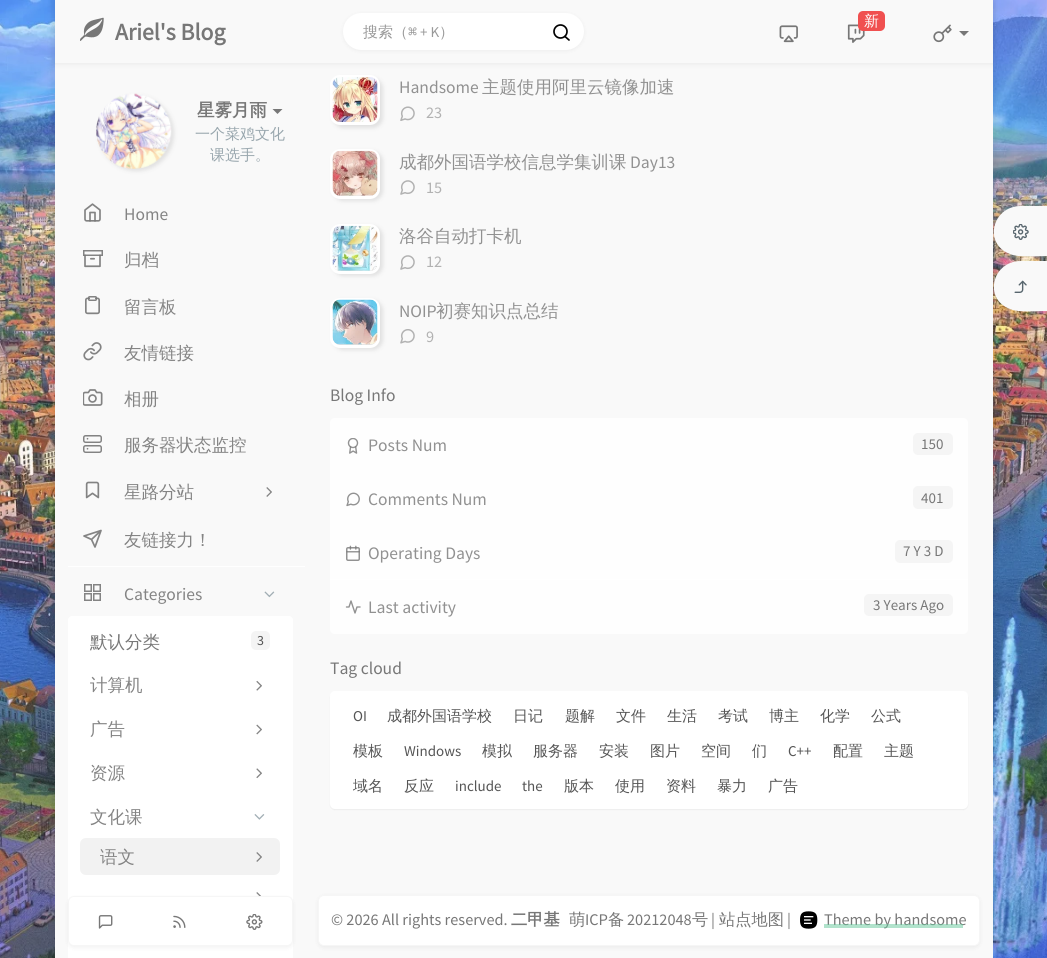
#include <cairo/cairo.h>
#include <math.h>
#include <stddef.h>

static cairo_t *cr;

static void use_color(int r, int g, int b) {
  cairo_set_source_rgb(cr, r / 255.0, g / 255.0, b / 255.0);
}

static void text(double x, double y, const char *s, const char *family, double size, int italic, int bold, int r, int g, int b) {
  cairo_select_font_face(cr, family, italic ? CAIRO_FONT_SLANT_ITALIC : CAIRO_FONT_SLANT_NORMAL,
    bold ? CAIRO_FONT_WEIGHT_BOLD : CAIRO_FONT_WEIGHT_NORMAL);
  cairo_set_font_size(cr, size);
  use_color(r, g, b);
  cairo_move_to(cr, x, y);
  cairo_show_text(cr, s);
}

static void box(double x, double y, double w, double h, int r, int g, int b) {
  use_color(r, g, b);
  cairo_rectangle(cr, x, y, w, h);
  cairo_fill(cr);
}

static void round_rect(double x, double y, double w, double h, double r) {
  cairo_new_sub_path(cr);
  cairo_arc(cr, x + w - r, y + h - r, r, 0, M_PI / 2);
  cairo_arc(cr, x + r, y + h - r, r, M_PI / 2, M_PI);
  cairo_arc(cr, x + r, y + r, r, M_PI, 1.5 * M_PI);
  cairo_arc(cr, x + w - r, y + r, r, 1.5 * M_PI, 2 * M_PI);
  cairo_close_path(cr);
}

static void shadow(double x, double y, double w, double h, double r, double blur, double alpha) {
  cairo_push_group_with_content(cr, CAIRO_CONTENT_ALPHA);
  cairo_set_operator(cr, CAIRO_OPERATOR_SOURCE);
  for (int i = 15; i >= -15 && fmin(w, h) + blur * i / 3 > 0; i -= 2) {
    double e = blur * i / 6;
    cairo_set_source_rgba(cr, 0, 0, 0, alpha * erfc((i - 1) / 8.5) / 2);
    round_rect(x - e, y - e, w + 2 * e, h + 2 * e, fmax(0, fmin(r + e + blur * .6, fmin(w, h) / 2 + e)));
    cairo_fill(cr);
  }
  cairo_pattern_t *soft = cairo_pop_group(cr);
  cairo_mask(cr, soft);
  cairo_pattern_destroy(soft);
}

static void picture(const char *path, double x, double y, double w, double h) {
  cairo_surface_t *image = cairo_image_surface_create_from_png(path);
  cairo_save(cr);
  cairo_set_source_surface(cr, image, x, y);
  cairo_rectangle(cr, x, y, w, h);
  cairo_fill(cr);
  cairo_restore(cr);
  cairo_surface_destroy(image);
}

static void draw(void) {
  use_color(255, 255, 255);
  cairo_paint(cr);
  picture("img_01.png", 0, 0, 1047, 958);
  use_color(0, 0, 0);
  shadow(51, -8, 945, 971, 0, 2.5, 0.05);
  box(55, 63, 938, 895, 249, 249, 249);
  use_color(0, 0, 0);
  shadow(54, 0, 940, 65, 0, 2.5, 0.05);
  box(55, 0, 938, 63, 249, 249, 249);
  picture("img_02.png", 80, 17, 24, 24);
  picture("img_03.png", 847, 24, 18, 19);
  use_color(240, 80, 80);
  round_rect(858, 11, 27, 20, 5);
  cairo_fill(cr);
  picture("img_04.png", 779, 25, 19, 18);
  picture("img_05.png", 933, 24, 19, 19);
  use_color(119, 119, 119);
  cairo_new_path(cr);
  cairo_move_to(cr, 959, 31);
  cairo_line_to(cr, 969, 31);
  cairo_line_to(cr, 964, 36);
  cairo_close_path(cr);
  cairo_fill(cr);
  use_color(0, 0, 0);
  shadow(343, 14, 241, 37, 18.5, 2, 0.05);
  use_color(255, 255, 255);
  round_rect(343, 13, 241, 37, 18.5);
  cairo_fill(cr);
  cairo_arc(cr, 560.5, 31.5, 6.5, 0, 2 * M_PI);
  use_color(0, 0, 0);
  cairo_set_line_width(cr, 1.7);
  cairo_stroke(cr);
  cairo_new_path(cr);
  cairo_move_to(cr, 569, 40);
  cairo_line_to(cr, 565, 36.5);
  cairo_set_line_cap(cr, CAIRO_LINE_CAP_ROUND);
  cairo_set_line_join(cr, CAIRO_LINE_JOIN_ROUND);
  cairo_stroke(cr);
  use_color(225, 225, 225);
  shadow(99, 96, 75, 75, 37.5, 2, 1);
  picture("img_06.png", 96, 93, 76, 76);
  use_color(119, 119, 119);
  cairo_new_path(cr);
  cairo_move_to(cr, 272.5, 109);
  cairo_line_to(cr, 282.5, 109);
  cairo_line_to(cr, 277.5, 114);
  cairo_close_path(cr);
  cairo_fill(cr);
  picture("img_07.png", 84, 203, 17, 19);
  picture("img_08.png", 83, 250, 20, 18);
  picture("img_09.png", 85, 296, 15, 19);
  picture("img_10.png", 83, 342, 19, 19);
  picture("img_11.png", 83, 389, 20, 17);
  picture("img_12.png", 83, 435, 19, 18);
  picture("img_13.png", 85, 481, 15, 18);
  picture("img_14.png", 266, 487, 6, 10);
  cairo_new_path(cr);
  cairo_move_to(cr, 101, 530.5);
  cairo_line_to(cr, 91.5, 539.5);
  cairo_move_to(cr, 101, 530.5);
  cairo_line_to(cr, 95, 547);
  cairo_line_to(cr, 91.5, 539.5);
  cairo_line_to(cr, 84, 536);
  cairo_close_path(cr);
  use_color(132, 132, 132);
  cairo_stroke(cr);
  use_color(255, 255, 255);
  cairo_new_path(cr);
  cairo_move_to(cr, 68.5, 566);
  cairo_line_to(cr, 305, 566);
  cairo_line_to(cr, 305, 567);
  cairo_line_to(cr, 68.5, 567);
  cairo_curve_to(cr, 68, 567, 68, 567, 68, 566.5);
  cairo_curve_to(cr, 68, 566, 68, 566, 68.5, 566);
  cairo_close_path(cr);
  cairo_fill(cr);
  picture("img_15.png", 84, 584, 17, 17);
  picture("img_16.png", 264, 591, 11, 7);
  cairo_new_path(cr);
  cairo_move_to(cr, 72, 616);
  cairo_line_to(cr, 289, 616);
  cairo_curve_to(cr, 291, 616, 293, 618, 293, 620);
  cairo_line_to(cr, 293, 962);
  cairo_line_to(cr, 68, 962);
  cairo_line_to(cr, 68, 620);
  cairo_curve_to(cr, 68, 618, 70, 616, 72, 616);
  cairo_close_path(cr);
  cairo_fill(cr);
  use_color(244, 244, 244);
  round_rect(251, 631, 19, 19, 5);
  cairo_fill(cr);
  picture("img_17.png", 256, 680, 6, 11);
  picture("img_18.png", 256, 724, 6, 11);
  picture("img_19.png", 256, 768, 6, 11);
  picture("img_20.png", 254, 814, 11, 6);
  use_color(242, 242, 242);
  round_rect(80, 838, 200, 37, 6);
  cairo_fill(cr);
  picture("img_21.png", 256, 852, 6, 10);
  picture("img_22.png", 256, 892, 5, 4);
  use_color(0, 0, 0);
  shadow(68, 898, 225, 50, 6, 2, 0.05);
  use_color(255, 255, 255);
  round_rect(68.5, 896.5, 224, 49, 5.5);
  cairo_fill_preserve(cr);
  use_color(246, 246, 246);
  cairo_set_line_width(cr, 1);
  cairo_set_line_cap(cr, CAIRO_LINE_CAP_BUTT);
  cairo_set_line_join(cr, CAIRO_LINE_JOIN_MITER);
  cairo_stroke(cr);
  picture("img_23.png", 98, 915, 15, 14);
  picture("img_24.png", 173, 915, 13, 13);
  picture("img_25.png", 246, 914, 17, 16);
  use_color(225, 225, 225);
  shadow(333, 78, 50, 50, 10, 2, 1);
  round_rect(331.5, 76.5, 47, 47, 8.5);
  use_color(255, 255, 255);
  cairo_set_line_width(cr, 3);
  cairo_stroke(cr);
  picture("img_26.png", 332, 77, 46, 45);
  picture("img_27.png", 400, 106, 15, 15);
  use_color(225, 225, 225);
  shadow(333, 151, 50, 50, 10, 2, 1);
  round_rect(331.5, 150.5, 47, 47, 8.5);
  use_color(255, 255, 255);
  cairo_stroke(cr);
  picture("img_28.png", 332, 150, 46, 46);
  picture("img_29.png", 400, 180, 15, 15);
  use_color(225, 225, 225);
  shadow(333, 226, 50, 50, 10, 2, 1);
  round_rect(331.5, 225.5, 47, 47, 8.5);
  use_color(255, 255, 255);
  cairo_stroke(cr);
  picture("img_30.png", 332, 225, 46, 46);
  picture("img_29.png", 400, 255, 15, 15);
  use_color(225, 225, 225);
  shadow(333, 300, 50, 50, 10, 2, 1);
  round_rect(331.5, 299.5, 47, 47, 8.5);
  use_color(255, 255, 255);
  cairo_stroke(cr);
  picture("img_31.png", 332, 299, 46, 46);
  picture("img_32.png", 400, 329, 15, 15);
  cairo_set_source_rgba(cr, 1, 1, 1, 0.8);
  cairo_new_path(cr);
  cairo_move_to(cr, 335, 418);
  cairo_line_to(cr, 963, 418);
  cairo_curve_to(cr, 966, 418, 968, 420, 968, 423);
  cairo_line_to(cr, 968, 473);
  cairo_line_to(cr, 330, 473);
  cairo_line_to(cr, 330, 423);
  cairo_curve_to(cr, 330, 420, 332, 418, 335, 418);
  cairo_close_path(cr);
  cairo_fill(cr);
  picture("img_33.png", 347, 438, 12, 16);
  use_color(245, 245, 245);
  round_rect(913, 433, 40, 22, 5);
  cairo_fill(cr);
  cairo_set_source_rgba(cr, 1, 1, 1, 0.8);
  cairo_rectangle(cr, 330, 473, 638, 53);
  cairo_fill(cr);
  picture("img_34.png", 346, 492, 14, 15);
  use_color(245, 245, 245);
  round_rect(913, 486, 40, 23, 5);
  cairo_fill(cr);
  cairo_set_source_rgba(cr, 1, 1, 1, 0.8);
  cairo_rectangle(cr, 330, 526, 638, 54);
  cairo_fill(cr);
  picture("img_35.png", 346, 545, 14, 16);
  use_color(245, 245, 245);
  round_rect(895, 540, 58, 23, 5);
  cairo_fill(cr);
  cairo_set_source_rgba(cr, 1, 1, 1, 0.8);
  cairo_new_path(cr);
  cairo_move_to(cr, 330, 579);
  cairo_line_to(cr, 968, 579);
  cairo_line_to(cr, 968, 629);
  cairo_curve_to(cr, 968, 632, 966, 634, 963, 634);
  cairo_line_to(cr, 335, 634);
  cairo_curve_to(cr, 332, 634, 330, 632, 330, 629);
  cairo_close_path(cr);
  cairo_fill(cr);
  cairo_new_path(cr);
  cairo_move_to(cr, 360, 607);
  cairo_line_to(cr, 357, 607);
  cairo_line_to(cr, 355, 613);
  cairo_line_to(cr, 351, 601);
  cairo_line_to(cr, 349, 607);
  cairo_line_to(cr, 346.5, 607);
  use_color(145, 145, 145);
  cairo_set_line_width(cr, 1.4);
  cairo_set_line_cap(cr, CAIRO_LINE_CAP_ROUND);
  cairo_set_line_join(cr, CAIRO_LINE_JOIN_ROUND);
  cairo_stroke(cr);
  use_color(245, 245, 245);
  round_rect(864, 594, 89, 22, 5);
  cairo_fill(cr);
  use_color(0, 0, 0);
  shadow(330, 693, 638, 117, 5, 0.5, 0.05);
  use_color(255, 255, 255);
  round_rect(330, 691, 638, 118, 5);
  cairo_fill(cr);
  use_color(249, 249, 249);
  cairo_new_path(cr);
  cairo_move_to(cr, 1021, 261);
  cairo_line_to(cr, 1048, 261);
  cairo_line_to(cr, 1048, 311);
  cairo_curve_to(cr, 1037, 311, 1019, 313, 1010, 309);
  cairo_curve_to(cr, 983, 299, 992, 261, 1021, 261);
  cairo_close_path(cr);
  cairo_fill(cr);
  picture("img_36.png", 1014, 280, 13, 13);
  use_color(0, 0, 0);
  shadow(318, 896, 662, 52, 6, 2, 0.05);
  use_color(255, 255, 255);
  round_rect(318.5, 895.5, 661, 50, 5.5);
  cairo_fill_preserve(cr);
  use_color(246, 246, 246);
  cairo_set_line_width(cr, 1);
  cairo_set_line_cap(cr, CAIRO_LINE_CAP_BUTT);
  cairo_set_line_join(cr, CAIRO_LINE_JOIN_MITER);
  cairo_stroke(cr);
  picture("img_37.png", 800, 911, 18, 18);
  use_color(249, 249, 249);
  cairo_new_path(cr);
  cairo_move_to(cr, 1021, 206);
  cairo_line_to(cr, 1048, 206);
  cairo_line_to(cr, 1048, 256);
  cairo_curve_to(cr, 1037, 256, 1019, 258, 1010, 254);
  cairo_curve_to(cr, 983, 244, 992, 206, 1021, 206);
  cairo_close_path(cr);
  cairo_fill(cr);
  picture("img_38.png", 1013, 224, 16, 16);
  text(115, 40, "Ariel's Blog", "Source Sans Pro", 23.75, 0, 1, 119, 119, 119);
  text(864, 26, "新", "WenQuanYi Zen Hei Medium", 15, 0, 0, 255, 255, 255);
  cairo_save(cr);
  cairo_rectangle(cr, 363, 23, 152, 21);
  cairo_clip(cr);
  text(363, 37, "搜索（", "WenQuanYi Zen Hei Medium", 15, 0, 0, 153, 153, 153);
  cairo_restore(cr);
  text(408, 37, "⌘", "DejaVu Sans Mono", 15, 0, 0, 153, 153, 153);
  text(420, 37, "+ K", "Source Sans Pro", 15, 0, 0, 153, 153, 153);
  text(439, 37, "）", "WenQuanYi Zen Hei Medium", 15, 0, 0, 153, 153, 153);
  text(197, 116, "星雾月雨", "WenQuanYi Zen Hei", 17.5, 0, 1, 119, 119, 119);
  text(195, 139, "一个菜鸡文化", "WenQuanYi Zen Hei Medium", 15, 0, 0, 152, 166, 173);
  text(210, 160, "课选手。", "WenQuanYi Zen Hei Medium", 15, 0, 0, 152, 166, 173);
  text(124, 220, "Home", "Source Sans Pro", 17.5, 0, 0, 132, 132, 132);
  text(124, 266, "归档", "WenQuanYi Zen Hei Medium", 17.5, 0, 0, 132, 132, 132);
  text(124, 313, "留言板", "WenQuanYi Zen Hei Medium", 17.5, 0, 0, 132, 132, 132);
  text(124, 359, "友情链接", "WenQuanYi Zen Hei Medium", 17.5, 0, 0, 132, 132, 132);
  text(124, 405, "相册", "WenQuanYi Zen Hei Medium", 17.5, 0, 0, 132, 132, 132);
  text(124, 451, "服务器状态监控", "WenQuanYi Zen Hei Medium", 17.5, 0, 0, 132, 132, 132);
  text(124, 498, "星路分站", "WenQuanYi Zen Hei Medium", 17.5, 0, 0, 132, 132, 132);
  text(124, 546, "友链接力！", "WenQuanYi Zen Hei Medium", 17.5, 0, 0, 132, 132, 132);
  text(124, 600, "Categories", "Source Sans Pro", 17.5, 0, 0, 132, 132, 132);
  text(90, 648, "默认分类", "WenQuanYi Zen Hei Medium", 17.5, 0, 0, 119, 119, 119);
  text(257, 645, "3", "Source Sans Pro", 14, 0, 0, 85, 85, 85);
  text(90, 691, "计算机", "WenQuanYi Zen Hei Medium", 17.5, 0, 0, 132, 132, 132);
  text(90, 735, "广告", "WenQuanYi Zen Hei Medium", 17.5, 0, 0, 132, 132, 132);
  text(90, 779, "资源", "WenQuanYi Zen Hei Medium", 17.5, 0, 0, 132, 132, 132);
  text(90, 823, "文化课", "WenQuanYi Zen Hei Medium", 17.5, 0, 0, 132, 132, 132);
  text(100, 863, "语文", "WenQuanYi Zen Hei Medium", 17.5, 0, 0, 132, 132, 132);
  text(399, 93, "Handsome", "Source Sans Pro", 17.5, 0, 0, 145, 145, 145);
  text(482, 93, "主题使用阿里云镜像加速", "WenQuanYi Zen Hei Medium", 17.5, 0, 0, 145, 145, 145);
  text(426, 118, "23", "Source Sans Pro", 16.25, 0, 0, 178, 178, 178);
  text(399, 168, "成都外国语学校信息学集训课", "WenQuanYi Zen Hei Medium", 17.5, 0, 0, 145, 145, 145);
  text(630, 168, "Day13", "Source Sans Pro", 17.5, 0, 0, 145, 145, 145);
  text(426, 193, "15", "Source Sans Pro", 16.25, 0, 0, 178, 178, 178);
  text(399, 242, "洛谷自动打卡机", "WenQuanYi Zen Hei Medium", 17.5, 0, 0, 145, 145, 145);
  text(426, 267, "12", "Source Sans Pro", 16.25, 0, 0, 178, 178, 178);
  text(399, 317, "NOIP", "Source Sans Pro", 17.5, 0, 0, 145, 145, 145);
  text(436, 317, "初赛知识点总结", "WenQuanYi Zen Hei Medium", 17.5, 0, 0, 145, 145, 145);
  text(426, 342, "9", "Source Sans Pro", 16.25, 0, 0, 178, 178, 178);
  text(330, 401, "Blog Info", "Source Sans Pro", 17.5, 0, 0, 119, 119, 119);
  text(368, 451, "Posts Num", "Source Sans Pro", 17.5, 0, 0, 145, 145, 145);
  text(921, 449, "150", "Source Sans Pro", 15, 0, 0, 119, 119, 119);
  text(368, 505, "Comments Num", "Source Sans Pro", 17.5, 0, 0, 145, 145, 145);
  text(921, 503, "401", "Source Sans Pro", 15, 0, 0, 119, 119, 119);
  text(368, 559, "Operating Days", "Source Sans Pro", 17.5, 0, 0, 145, 145, 145);
  text(903, 556, "7 Y 3 D", "Source Sans Pro", 15, 0, 0, 119, 119, 119);
  text(368, 613, "Last activity", "Source Sans Pro", 17.5, 0, 0, 145, 145, 145);
  text(873, 610, "3 Years Ago", "Source Sans Pro", 15, 0, 0, 119, 119, 119);
  text(330, 674, "Tag cloud", "Source Sans Pro", 17.5, 0, 0, 119, 119, 119);
  text(353, 721, "OI", "Source Sans Pro", 15, 0, 0, 85, 85, 85);
  text(387, 721, "成都外国语学校", "WenQuanYi Zen Hei Medium", 15, 0, 0, 85, 85, 85);
  text(513, 721, "日记", "WenQuanYi Zen Hei Medium", 15, 0, 0, 85, 85, 85);
  text(565, 721, "题解", "WenQuanYi Zen Hei Medium", 15, 0, 0, 85, 85, 85);
  text(616, 721, "文件", "WenQuanYi Zen Hei Medium", 15, 0, 0, 85, 85, 85);
  text(667, 721, "生活", "WenQuanYi Zen Hei Medium", 15, 0, 0, 85, 85, 85);
  text(718, 721, "考试", "WenQuanYi Zen Hei Medium", 15, 0, 0, 85, 85, 85);
  text(769, 721, "博主", "WenQuanYi Zen Hei Medium", 15, 0, 0, 85, 85, 85);
  text(820, 721, "化学", "WenQuanYi Zen Hei Medium", 15, 0, 0, 85, 85, 85);
  text(871, 721, "公式", "WenQuanYi Zen Hei Medium", 15, 0, 0, 85, 85, 85);
  text(353, 756, "模板", "WenQuanYi Zen Hei Medium", 15, 0, 0, 85, 85, 85);
  text(404, 756, "Windows", "Source Sans Pro", 15, 0, 0, 85, 85, 85);
  text(482, 756, "模拟", "WenQuanYi Zen Hei Medium", 15, 0, 0, 85, 85, 85);
  text(533, 756, "服务器", "WenQuanYi Zen Hei Medium", 15, 0, 0, 85, 85, 85);
  text(599, 756, "安装", "WenQuanYi Zen Hei Medium", 15, 0, 0, 85, 85, 85);
  text(650, 756, "图片", "WenQuanYi Zen Hei Medium", 15, 0, 0, 85, 85, 85);
  text(701, 756, "空间", "WenQuanYi Zen Hei Medium", 15, 0, 0, 85, 85, 85);
  text(752, 756, "们", "WenQuanYi Zen Hei Medium", 15, 0, 0, 85, 85, 85);
  text(788, 756, "C++", "Source Sans Pro", 15, 0, 0, 85, 85, 85);
  text(833, 756, "配置", "WenQuanYi Zen Hei Medium", 15, 0, 0, 85, 85, 85);
  text(884, 756, "主题", "WenQuanYi Zen Hei Medium", 15, 0, 0, 85, 85, 85);
  text(353, 791, "域名", "WenQuanYi Zen Hei Medium", 15, 0, 0, 85, 85, 85);
  text(404, 791, "反应", "WenQuanYi Zen Hei Medium", 15, 0, 0, 85, 85, 85);
  text(455, 791, "include", "Source Sans Pro", 15, 0, 0, 85, 85, 85);
  text(522, 791, "the", "Source Sans Pro", 15, 0, 0, 85, 85, 85);
  text(564, 791, "版本", "WenQuanYi Zen Hei Medium", 15, 0, 0, 85, 85, 85);
  text(615, 791, "使用", "WenQuanYi Zen Hei Medium", 15, 0, 0, 85, 85, 85);
  text(666, 791, "资料", "WenQuanYi Zen Hei Medium", 15, 0, 0, 85, 85, 85);
  text(717, 791, "暴力", "WenQuanYi Zen Hei Medium", 15, 0, 0, 85, 85, 85);
  text(768, 791, "广告", "WenQuanYi Zen Hei Medium", 15, 0, 0, 85, 85, 85);
  text(331, 925, "© 2026 All rights reserved.", "Source Sans Pro", 16.25, 0, 0, 119, 119, 119);
  text(511, 925, "二甲基", "WenQuanYi Zen Hei", 16.25, 0, 1, 119, 119, 119);
  text(569, 925, "萌", "WenQuanYi Zen Hei Medium", 16.25, 0, 0, 119, 119, 119);
  text(585, 925, "ICP", "Source Sans Pro", 16.25, 0, 0, 119, 119, 119);
  text(608, 925, "备", "WenQuanYi Zen Hei Medium", 16.25, 0, 0, 119, 119, 119);
  text(627, 925, "20212048", "Source Sans Pro", 16.25, 0, 0, 119, 119, 119);
  text(692, 925, "号", "WenQuanYi Zen Hei Medium", 16.25, 0, 0, 119, 119, 119);
  text(711, 925, "|", "Source Sans Pro", 16.25, 0, 0, 119, 119, 119);
  text(719, 925, "站点地图", "WenQuanYi Zen Hei Medium", 16.25, 0, 0, 119, 119, 119);
  text(787, 925, "|", "Source Sans Pro", 16.25, 0, 0, 119, 119, 119);
  text(824, 925, "Theme by handsome", "Source Sans Pro", 16.25, 0, 0, 119, 119, 119);
  cairo_set_source_rgba(cr, 0.392, 0.788, 0.608, 0.5);
  cairo_rectangle(cr, 824, 924, 139, 4);
  cairo_fill(cr);
}

int main(void) {
  cairo_surface_t *surface = cairo_image_surface_create(CAIRO_FORMAT_RGB24, 1047, 958);
  cr = cairo_create(surface);
  cairo_font_options_t *options = cairo_font_options_create();
  cairo_font_options_set_hint_metrics(options, CAIRO_HINT_METRICS_OFF);
  cairo_font_options_set_hint_style(options, CAIRO_HINT_STYLE_NONE);
  cairo_set_font_options(cr, options);
  cairo_set_miter_limit(cr, 4);
  draw();
  cairo_surface_write_to_png(surface, "out.png");
  cairo_font_options_destroy(options);
  cairo_destroy(cr);
  cairo_surface_destroy(surface);
  return 0;
}
